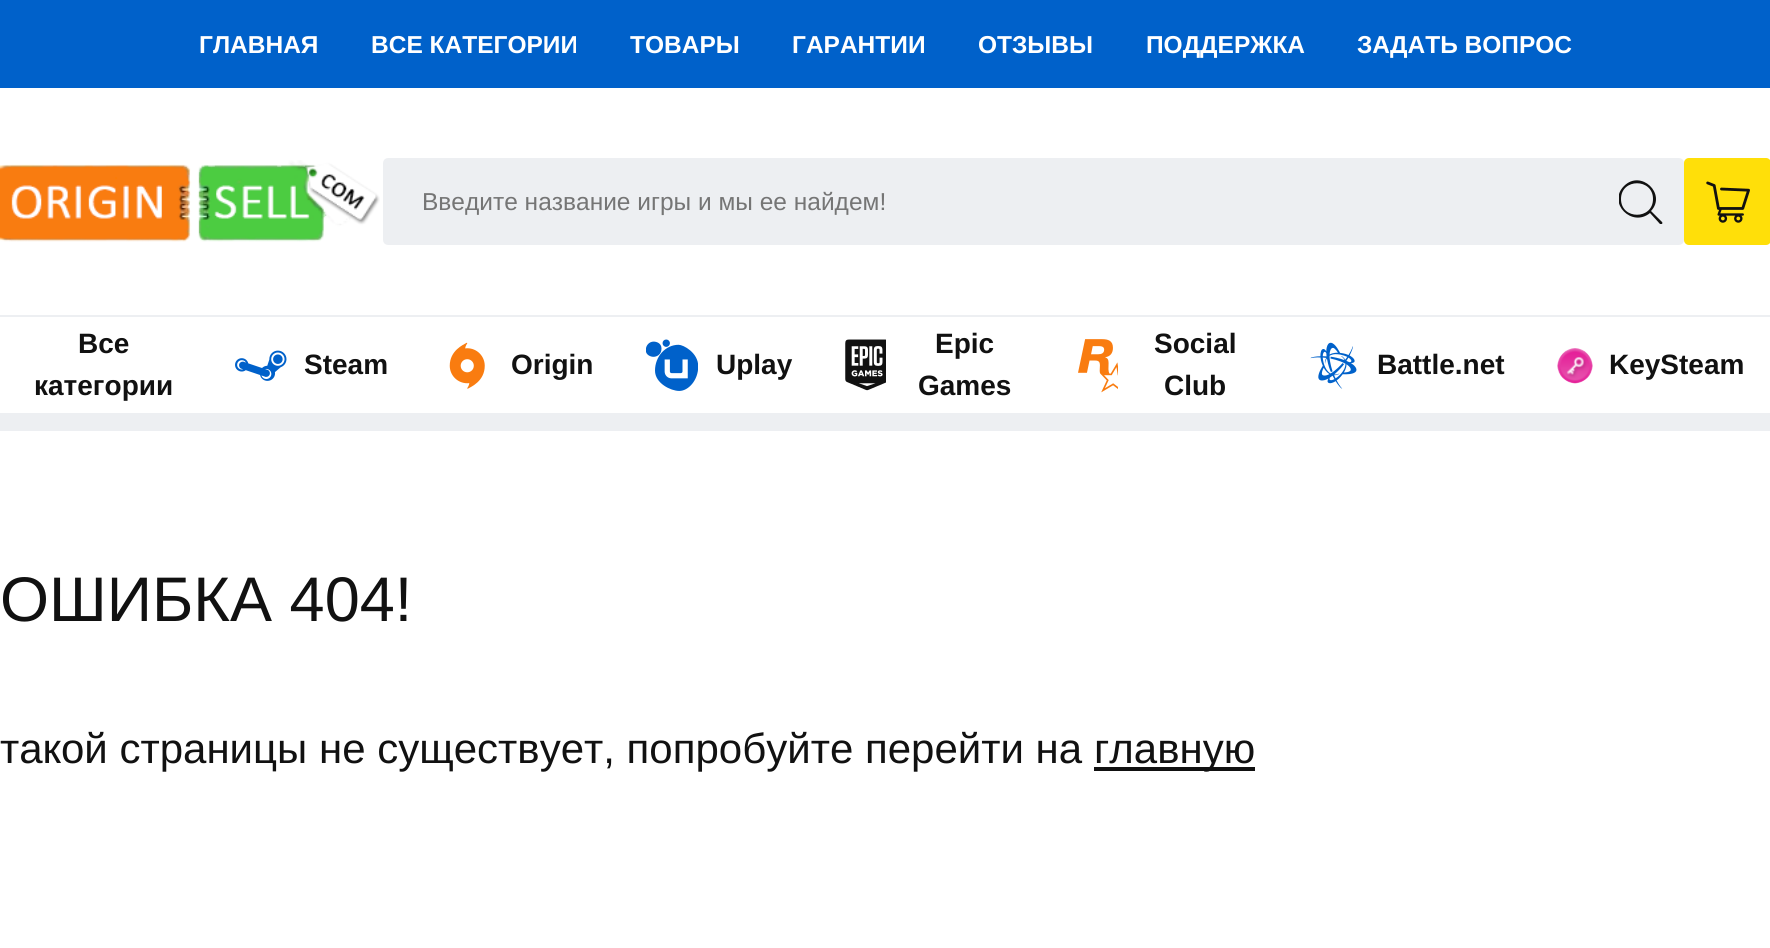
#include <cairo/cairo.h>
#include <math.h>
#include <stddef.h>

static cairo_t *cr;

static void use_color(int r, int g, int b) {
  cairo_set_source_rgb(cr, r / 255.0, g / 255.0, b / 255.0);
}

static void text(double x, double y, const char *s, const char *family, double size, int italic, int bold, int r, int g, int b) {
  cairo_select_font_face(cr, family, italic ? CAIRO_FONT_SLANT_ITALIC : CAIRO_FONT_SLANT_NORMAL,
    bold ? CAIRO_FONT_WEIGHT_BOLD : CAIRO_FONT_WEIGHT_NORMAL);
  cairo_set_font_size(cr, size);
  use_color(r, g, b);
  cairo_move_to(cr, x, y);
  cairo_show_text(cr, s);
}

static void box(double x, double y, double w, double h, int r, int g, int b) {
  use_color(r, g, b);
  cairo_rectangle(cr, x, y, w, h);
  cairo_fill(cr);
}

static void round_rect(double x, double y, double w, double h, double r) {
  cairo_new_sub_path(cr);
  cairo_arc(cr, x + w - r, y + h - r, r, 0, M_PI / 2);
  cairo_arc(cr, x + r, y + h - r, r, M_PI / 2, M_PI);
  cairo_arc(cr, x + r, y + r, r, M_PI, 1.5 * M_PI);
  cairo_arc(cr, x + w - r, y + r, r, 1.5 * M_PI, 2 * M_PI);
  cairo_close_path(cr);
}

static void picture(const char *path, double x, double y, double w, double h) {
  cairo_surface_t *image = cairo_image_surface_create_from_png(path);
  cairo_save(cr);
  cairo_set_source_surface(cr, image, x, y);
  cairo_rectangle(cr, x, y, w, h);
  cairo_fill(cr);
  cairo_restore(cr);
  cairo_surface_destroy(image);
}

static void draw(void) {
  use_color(237, 239, 242);
  cairo_paint(cr);
  box(0, 0, 1770, 88, 0, 97, 202);
  box(0, 88, 1770, 227, 255, 255, 255);
  picture("img_01.png", 0, 160, 380, 82);
  use_color(237, 239, 242);
  round_rect(385, 160, 1297, 83, 3);
  cairo_fill_preserve(cr);
  cairo_set_line_width(cr, 4);
  cairo_stroke(cr);
  cairo_save(cr);
  cairo_rectangle(cr, 1619, 180, 44, 44);
  cairo_clip(cr);
  use_color(17, 17, 17);
  cairo_new_path(cr);
  cairo_move_to(cr, 1662, 222);
  cairo_line_to(cr, 1651, 211);
  cairo_curve_to(cr, 1667, 194, 1641, 169, 1624, 186);
  cairo_curve_to(cr, 1607, 203, 1632, 228, 1650, 213);
  cairo_line_to(cr, 1660, 224);
  cairo_curve_to(cr, 1662, 225, 1663, 223, 1662, 222);
  cairo_close_path(cr);
  cairo_move_to(cr, 1621, 199);
  cairo_curve_to(cr, 1621, 178, 1653, 178, 1653, 199);
  cairo_curve_to(cr, 1653, 220, 1621, 220, 1621, 199);
  cairo_close_path(cr);
  cairo_fill(cr);
  cairo_restore(cr);
  use_color(255, 223, 9);
  round_rect(1684, 158, 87, 87, 5);
  cairo_fill(cr);
  picture("img_02.png", 1706, 181, 44, 42);
  box(0, 317, 1770, 96, 255, 255, 255);
  picture("img_03.png", 235, 350, 52, 31);
  picture("img_04.png", 449, 342, 36, 47);
  picture("img_05.png", 646, 339, 52, 52);
  picture("img_06.png", 845, 339, 41, 52);
  picture("img_07.png", 1078, 339, 40, 54);
  picture("img_08.png", 1310, 342, 47, 47);
  picture("img_09.png", 1557, 348, 36, 36);
  box(0, 431, 1770, 517, 255, 255, 255);
  box(1094, 767, 161, 4, 17, 17, 17);
  text(199, 53, "ГЛАВНАЯ", "Liberation Sans", 24.5, 0, 1, 255, 255, 255);
  text(371, 53, "ВСЕ КАТЕГОРИИ", "Liberation Sans", 24.5, 0, 1, 255, 255, 255);
  text(630, 53, "ТОВАРЫ", "Liberation Sans", 24.5, 0, 1, 255, 255, 255);
  text(792, 53, "ГАРАНТИИ", "Liberation Sans", 24.5, 0, 1, 255, 255, 255);
  text(978, 53, "ОТЗЫВЫ", "Liberation Sans", 24.5, 0, 1, 255, 255, 255);
  text(1146, 53, "ПОДДЕРЖКА", "Liberation Sans", 24.5, 0, 1, 255, 255, 255);
  text(1357, 53, "ЗАДАТЬ ВОПРОС", "Liberation Sans", 24.5, 0, 1, 255, 255, 255);
  text(422, 210, "Введите название игры и мы ее найдем!", "Liberation Sans", 24.5, 0, 0, 117, 117, 117);
  text(78, 353, "Все", "Liberation Sans", 28, 0, 1, 17, 17, 17);
  text(34, 395, "категории", "Liberation Sans", 28, 0, 1, 17, 17, 17);
  text(304, 374, "Steam", "Liberation Sans", 28, 0, 1, 17, 17, 17);
  text(511, 374, "Origin", "Liberation Sans", 28, 0, 1, 17, 17, 17);
  text(716, 374, "Uplay", "Liberation Sans", 28, 0, 1, 17, 17, 17);
  text(935, 353, "Epic", "Liberation Sans", 28, 0, 1, 17, 17, 17);
  text(918, 395, "Games", "Liberation Sans", 28, 0, 1, 17, 17, 17);
  text(1154, 353, "Social", "Liberation Sans", 28, 0, 1, 17, 17, 17);
  text(1164, 395, "Club", "Liberation Sans", 28, 0, 1, 17, 17, 17);
  text(1377, 374, "Battle.net", "Liberation Sans", 28, 0, 1, 17, 17, 17);
  text(1609, 374, "KeySteam", "Liberation Sans", 28, 0, 1, 17, 17, 17);
  text(0, 621, "ОШИБКА 404!", "Liberation Sans", 63, 0, 0, 17, 17, 17);
  text(0, 763, "такой страницы не существует, попробуйте перейти на", "Liberation Sans", 42, 0, 0, 17, 17, 17);
  text(1094, 763, "главную", "Liberation Sans", 42, 0, 0, 17, 17, 17);
}

int main(void) {
  cairo_surface_t *surface = cairo_image_surface_create(CAIRO_FORMAT_RGB24, 1770, 948);
  cr = cairo_create(surface);
  cairo_font_options_t *options = cairo_font_options_create();
  cairo_font_options_set_hint_metrics(options, CAIRO_HINT_METRICS_OFF);
  cairo_font_options_set_hint_style(options, CAIRO_HINT_STYLE_NONE);
  cairo_set_font_options(cr, options);
  cairo_set_miter_limit(cr, 4);
  draw();
  cairo_surface_write_to_png(surface, "out.png");
  cairo_font_options_destroy(options);
  cairo_destroy(cr);
  cairo_surface_destroy(surface);
  return 0;
}
